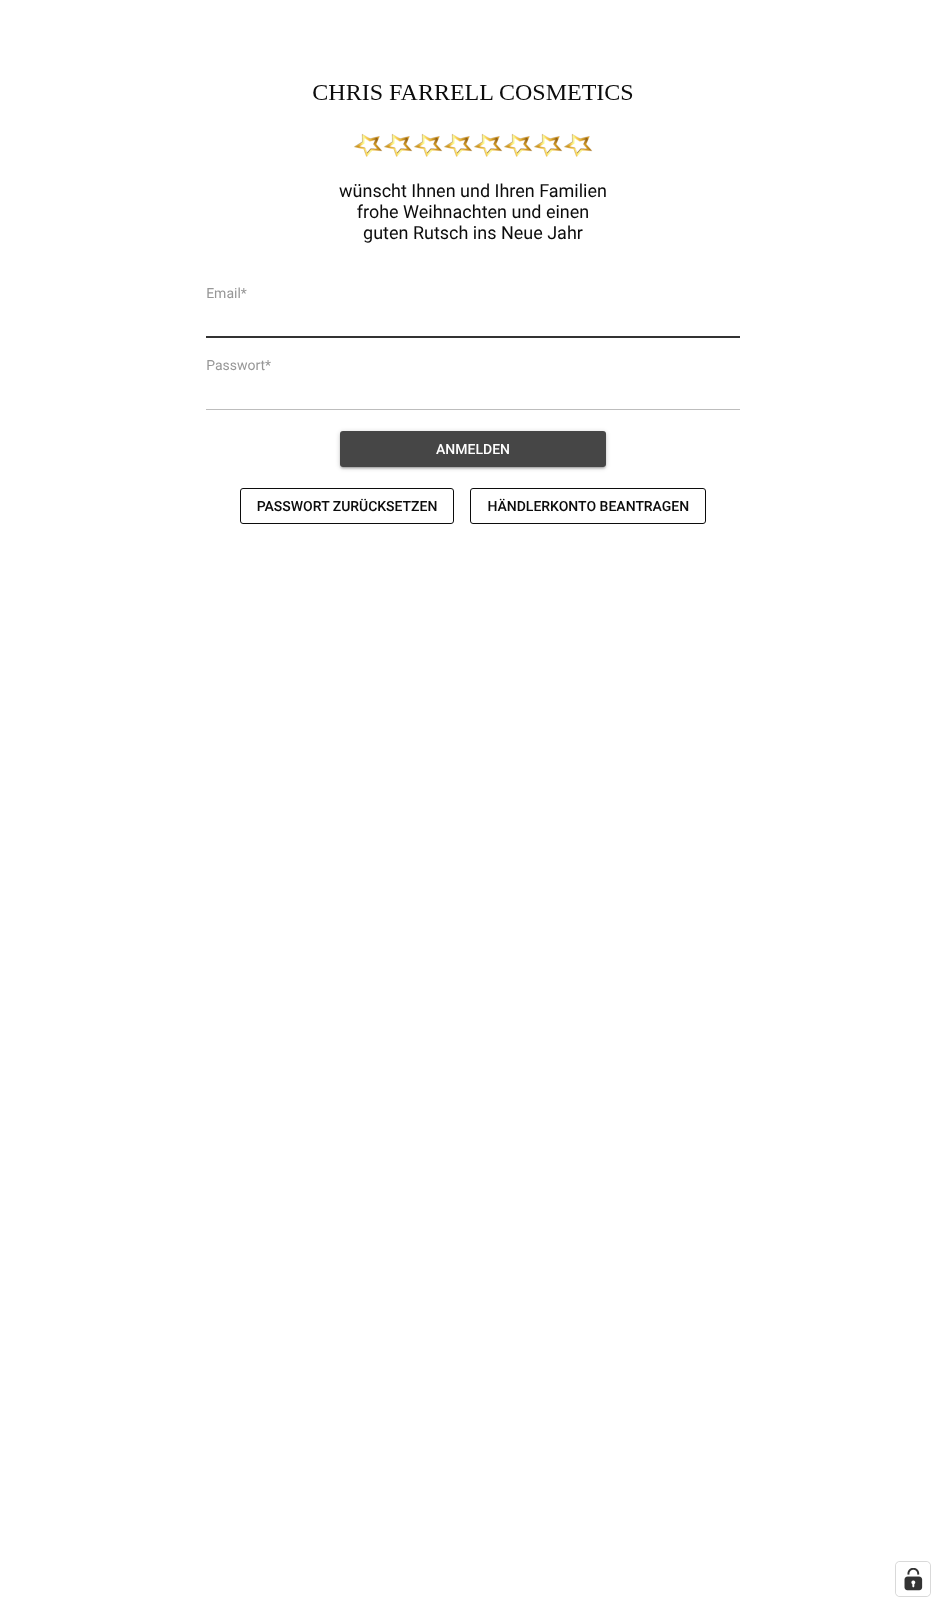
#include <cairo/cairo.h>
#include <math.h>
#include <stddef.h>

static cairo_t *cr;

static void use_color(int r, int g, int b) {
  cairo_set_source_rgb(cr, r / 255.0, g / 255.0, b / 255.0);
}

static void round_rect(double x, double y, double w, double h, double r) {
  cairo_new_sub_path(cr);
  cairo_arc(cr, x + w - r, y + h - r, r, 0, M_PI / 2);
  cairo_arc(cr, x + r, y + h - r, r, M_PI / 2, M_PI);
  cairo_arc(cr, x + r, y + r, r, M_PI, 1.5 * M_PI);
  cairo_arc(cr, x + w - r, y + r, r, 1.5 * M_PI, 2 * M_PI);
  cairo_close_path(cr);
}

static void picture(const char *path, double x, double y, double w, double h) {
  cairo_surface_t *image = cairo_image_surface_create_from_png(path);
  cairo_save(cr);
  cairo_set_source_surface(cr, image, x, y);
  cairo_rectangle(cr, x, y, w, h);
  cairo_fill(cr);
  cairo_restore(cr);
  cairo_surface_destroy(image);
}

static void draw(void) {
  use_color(255, 255, 255);
  cairo_paint(cr);
  picture("img_01.png", 206, 85, 534, 439);
  round_rect(895.5, 1561.5, 35, 35, 4.5);
  use_color(217, 217, 217);
  cairo_set_line_width(cr, 1);
  cairo_stroke(cr);
  use_color(255, 255, 255);
  round_rect(896, 1562, 34, 34, 4);
  cairo_fill(cr);
  picture("img_02.png", 904, 1568, 19, 23);
}

int main(void) {
  cairo_surface_t *surface = cairo_image_surface_create(CAIRO_FORMAT_RGB24, 946, 1612);
  cr = cairo_create(surface);
  cairo_font_options_t *options = cairo_font_options_create();
  cairo_font_options_set_hint_metrics(options, CAIRO_HINT_METRICS_OFF);
  cairo_font_options_set_hint_style(options, CAIRO_HINT_STYLE_NONE);
  cairo_set_font_options(cr, options);
  cairo_set_miter_limit(cr, 4);
  draw();
  cairo_surface_write_to_png(surface, "out.png");
  cairo_font_options_destroy(options);
  cairo_destroy(cr);
  cairo_surface_destroy(surface);
  return 0;
}
